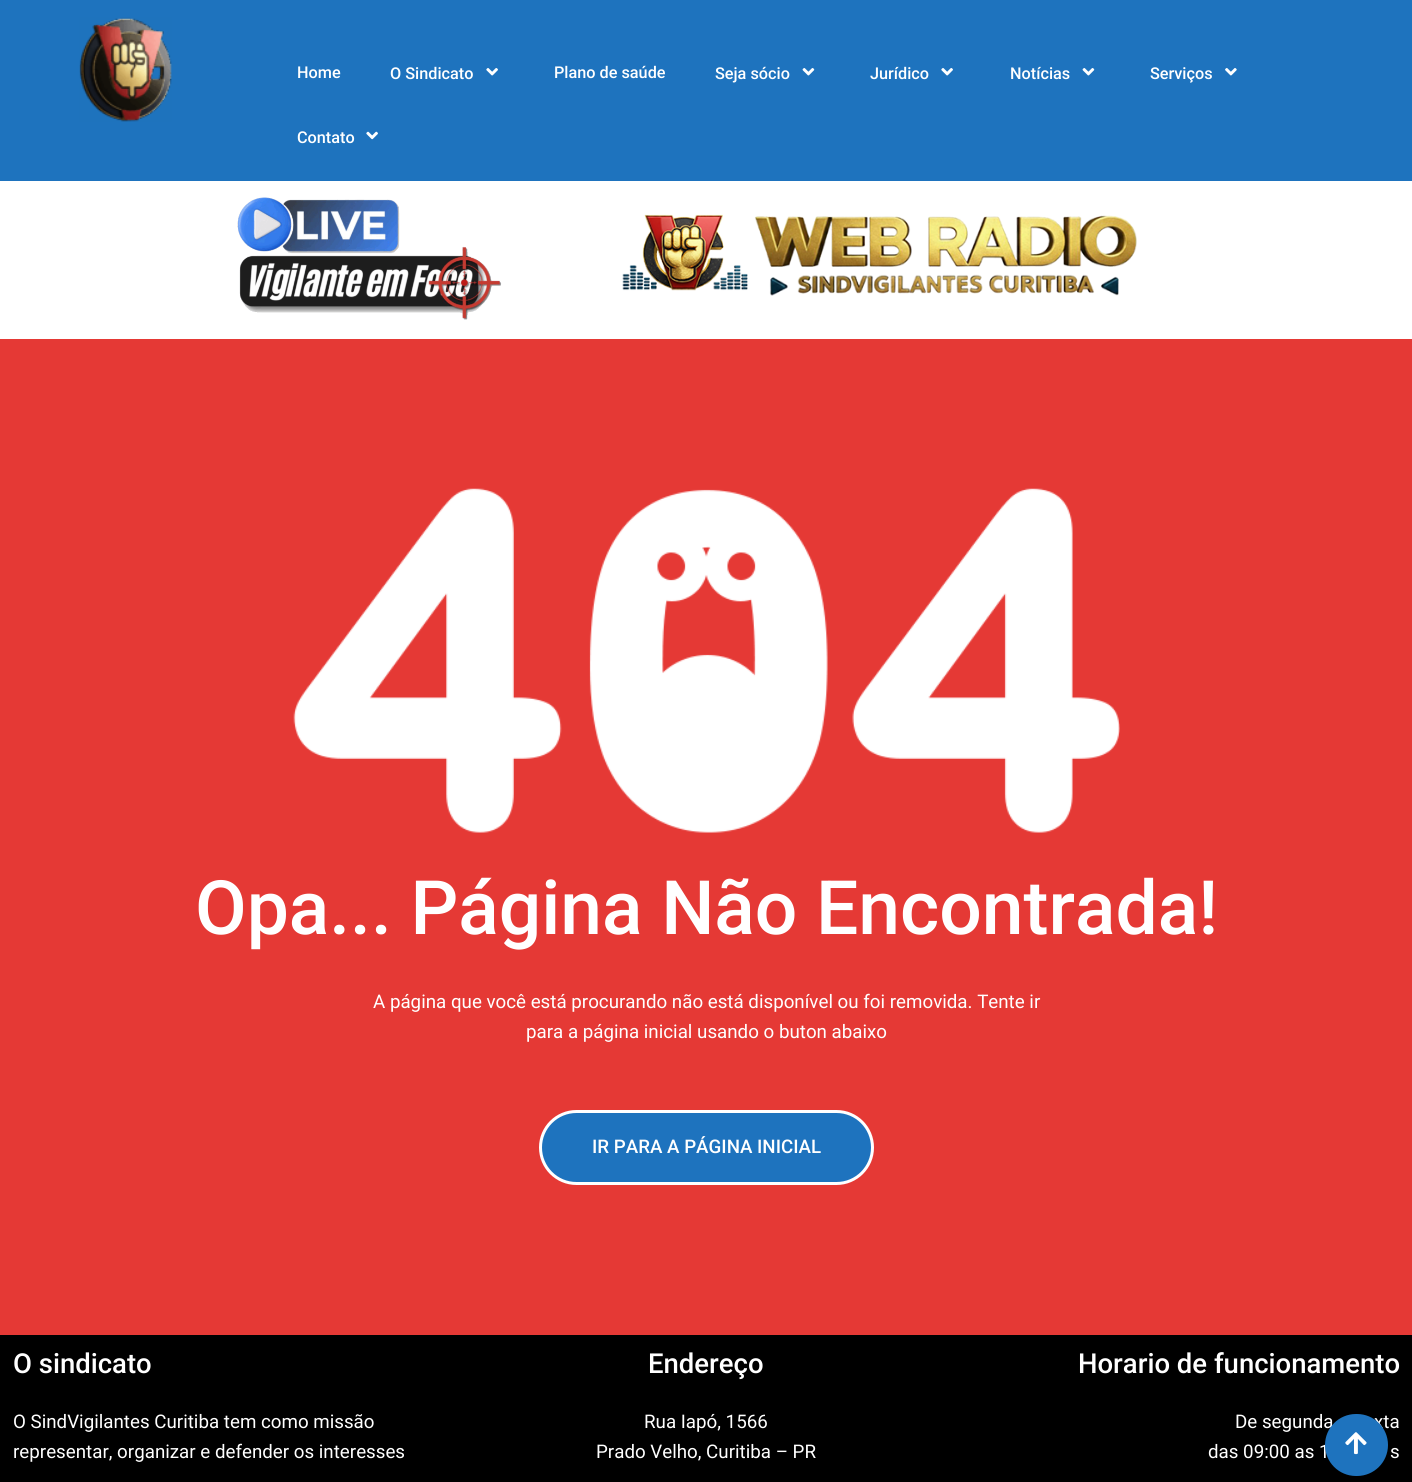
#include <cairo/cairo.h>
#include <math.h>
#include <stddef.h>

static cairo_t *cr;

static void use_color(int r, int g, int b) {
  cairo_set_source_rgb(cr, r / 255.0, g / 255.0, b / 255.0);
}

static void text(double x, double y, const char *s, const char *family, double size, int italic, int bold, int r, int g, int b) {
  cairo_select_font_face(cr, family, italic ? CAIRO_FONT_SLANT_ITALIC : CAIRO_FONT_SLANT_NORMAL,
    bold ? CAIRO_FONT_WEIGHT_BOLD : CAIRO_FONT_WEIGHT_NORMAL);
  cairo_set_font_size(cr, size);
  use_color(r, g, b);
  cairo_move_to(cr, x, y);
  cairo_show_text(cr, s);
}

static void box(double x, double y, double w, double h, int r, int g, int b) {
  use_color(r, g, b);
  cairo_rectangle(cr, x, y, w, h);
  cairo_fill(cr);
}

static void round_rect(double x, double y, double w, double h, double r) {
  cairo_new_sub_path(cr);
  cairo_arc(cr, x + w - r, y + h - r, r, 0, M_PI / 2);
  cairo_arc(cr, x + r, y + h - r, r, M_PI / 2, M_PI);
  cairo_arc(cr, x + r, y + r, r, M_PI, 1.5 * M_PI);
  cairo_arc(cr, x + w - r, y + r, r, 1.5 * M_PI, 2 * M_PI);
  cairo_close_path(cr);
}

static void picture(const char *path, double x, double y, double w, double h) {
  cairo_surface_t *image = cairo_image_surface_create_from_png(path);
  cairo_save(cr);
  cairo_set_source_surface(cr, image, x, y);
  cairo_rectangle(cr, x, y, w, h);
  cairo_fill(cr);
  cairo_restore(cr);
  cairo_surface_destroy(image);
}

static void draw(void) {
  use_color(255, 255, 255);
  cairo_paint(cr);
  box(0, 0, 1412, 181, 30, 115, 190);
  picture("img_01.png", 79, 17, 93, 105);
  picture("img_02.png", 486, 68, 12, 8);
  picture("img_03.png", 802, 68, 13, 8);
  picture("img_02.png", 941, 68, 12, 8);
  picture("img_03.png", 1082, 68, 13, 8);
  picture("img_04.png", 1225, 68, 12, 8);
  picture("img_05.png", 366, 131, 12, 9);
  picture("img_06.png", 237, 197, 265, 123);
  picture("img_07.png", 622, 214, 515, 82);
  box(0, 339, 1412, 996, 229, 57, 53);
  picture("img_08.png", 293, 488, 827, 345);
  use_color(30, 115, 190);
  round_rect(540.5, 1111.5, 332, 72, 36);
  cairo_fill_preserve(cr);
  use_color(255, 255, 255);
  cairo_set_line_width(cr, 3);
  cairo_stroke(cr);
  box(0, 1335, 1412, 147, 0, 0, 0);
  text(297, 78, "Home", "Roboto Medium", 16.25, 0, 0, 255, 255, 255);
  text(390, 79, "O Sindicato", "Roboto Medium", 16.25, 0, 0, 255, 255, 255);
  text(554, 78, "Plano de saúde", "Roboto Medium", 16.25, 0, 0, 255, 255, 255);
  text(715, 79, "Seja sócio", "Roboto Medium", 16.25, 0, 0, 255, 255, 255);
  text(870, 79, "Jurídico", "Roboto Medium", 16.25, 0, 0, 255, 255, 255);
  text(1010, 79, "Notícias", "Roboto Medium", 16.25, 0, 0, 255, 255, 255);
  text(1150, 79, "Serviços", "Roboto Medium", 16.25, 0, 0, 255, 255, 255);
  text(297, 143, "Contato", "Roboto Medium", 16.25, 0, 0, 255, 255, 255);
  text(195, 934, "Opa... Página Não Encontrada!", "Roboto Medium", 75, 0, 0, 255, 255, 255);
  text(373, 1008, "A página que você está procurando não está disponível ou foi removida. Tente ir", "Roboto", 18.75, 0, 0, 255, 255, 255);
  text(526, 1038, "para a página inicial usando o buton abaixo", "Roboto", 18.75, 0, 0, 255, 255, 255);
  text(592, 1153, "IR PARA A PÁGINA INICIAL", "Roboto Medium", 18.75, 0, 0, 255, 255, 255);
  text(13, 1373, "O sindicato", "Roboto Medium", 27.5, 0, 0, 255, 255, 255);
  text(13, 1428, "O SindVigilantes Curitiba tem como missão", "Roboto", 18.75, 0, 0, 255, 255, 255);
  text(13, 1458, "representar, organizar e defender os interesses", "Roboto", 18.75, 0, 0, 255, 255, 255);
  text(648, 1373, "Endereço", "Roboto Medium", 27.5, 0, 0, 255, 255, 255);
  text(644, 1428, "Rua Iapó, 1566", "Roboto", 18.75, 0, 0, 255, 255, 255);
  text(596, 1458, "Prado Velho, Curitiba – PR", "Roboto", 18.75, 0, 0, 255, 255, 255);
  text(1078, 1373, "Horario de funcionamento", "Roboto Medium", 27.5, 0, 0, 255, 255, 255);
  text(1235, 1428, "De segunda", "Roboto", 18.75, 0, 0, 255, 255, 255);
  text(1374, 1428, "xta", "Roboto", 18.75, 0, 0, 255, 255, 255);
  text(1208, 1458, "das 09:00 as 1", "Roboto", 18.75, 0, 0, 255, 255, 255);
  text(1390, 1458, "s", "Roboto", 18.75, 0, 0, 255, 255, 255);
  use_color(30, 115, 190);
  round_rect(1326.5, 1415.5, 60, 59, 29.5);
  cairo_fill_preserve(cr);
  cairo_stroke(cr);
  picture("img_09.png", 1345, 1432, 22, 23);
}

int main(void) {
  cairo_surface_t *surface = cairo_image_surface_create(CAIRO_FORMAT_RGB24, 1412, 1482);
  cr = cairo_create(surface);
  cairo_font_options_t *options = cairo_font_options_create();
  cairo_font_options_set_hint_metrics(options, CAIRO_HINT_METRICS_OFF);
  cairo_font_options_set_hint_style(options, CAIRO_HINT_STYLE_NONE);
  cairo_set_font_options(cr, options);
  cairo_set_miter_limit(cr, 4);
  draw();
  cairo_surface_write_to_png(surface, "out.png");
  cairo_font_options_destroy(options);
  cairo_destroy(cr);
  cairo_surface_destroy(surface);
  return 0;
}
